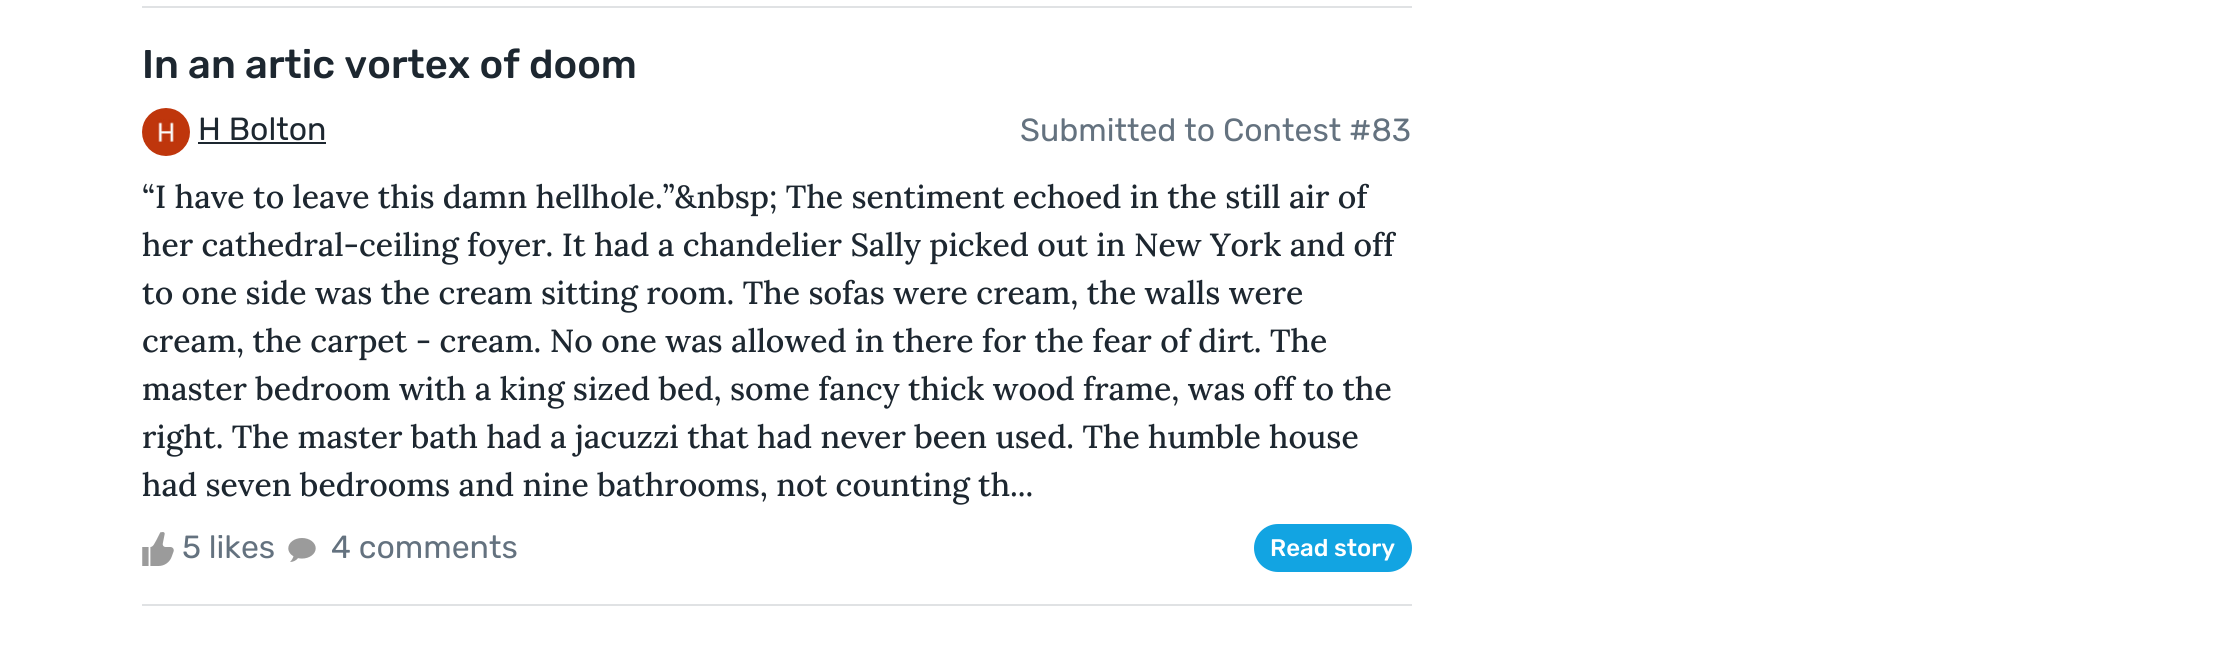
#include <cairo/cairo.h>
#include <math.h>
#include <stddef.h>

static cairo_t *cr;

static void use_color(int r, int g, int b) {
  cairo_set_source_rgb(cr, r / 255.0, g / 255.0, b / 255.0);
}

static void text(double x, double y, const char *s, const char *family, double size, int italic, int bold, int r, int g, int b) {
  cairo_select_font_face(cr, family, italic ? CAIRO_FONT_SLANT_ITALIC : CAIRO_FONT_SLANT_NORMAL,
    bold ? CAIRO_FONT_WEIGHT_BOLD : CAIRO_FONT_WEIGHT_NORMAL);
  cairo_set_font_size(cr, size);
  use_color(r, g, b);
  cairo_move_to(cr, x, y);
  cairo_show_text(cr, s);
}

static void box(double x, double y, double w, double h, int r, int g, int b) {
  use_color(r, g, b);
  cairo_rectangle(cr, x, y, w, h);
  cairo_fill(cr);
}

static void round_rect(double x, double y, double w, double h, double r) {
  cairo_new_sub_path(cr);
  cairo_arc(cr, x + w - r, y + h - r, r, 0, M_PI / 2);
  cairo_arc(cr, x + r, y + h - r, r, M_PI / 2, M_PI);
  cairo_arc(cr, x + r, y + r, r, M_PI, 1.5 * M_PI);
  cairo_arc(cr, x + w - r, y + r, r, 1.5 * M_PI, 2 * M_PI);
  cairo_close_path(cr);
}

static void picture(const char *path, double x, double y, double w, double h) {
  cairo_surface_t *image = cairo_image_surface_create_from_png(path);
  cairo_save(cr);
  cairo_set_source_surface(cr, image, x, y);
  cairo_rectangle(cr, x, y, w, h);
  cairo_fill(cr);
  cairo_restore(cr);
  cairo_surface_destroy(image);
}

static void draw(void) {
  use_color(255, 255, 255);
  cairo_paint(cr);
  box(142, 6, 1270, 2, 224, 226, 228);
  picture("img_01.png", 142, 108, 48, 48);
  box(198, 142, 128, 2, 29, 39, 48);
  picture("img_02.png", 142, 532, 32, 34);
  picture("img_03.png", 288, 538, 28, 24);
  use_color(18, 164, 226);
  round_rect(1256, 526, 154, 44, 22);
  cairo_fill_preserve(cr);
  cairo_set_line_width(cr, 4);
  cairo_stroke(cr);
  box(142, 604, 1270, 2, 224, 226, 228);
  text(142, 78, "In an artic vortex of doom", "Rubik Medium", 40, 0, 0, 29, 39, 48);
  text(198, 140, "H Bolton", "Rubik", 32, 0, 0, 29, 39, 48);
  text(1020, 141, "Submitted to Contest #83", "Rubik", 32, 0, 0, 100, 114, 127);
  text(142, 208, "“I have to leave this damn hellhole.”&nbsp; The sentiment echoed in the still air of", "Lora Medium", 32, 0, 0, 29, 39, 48);
  text(142, 256, "her cathedral-ceiling foyer. It had a chandelier Sally picked out in New York and off", "Lora Medium", 32, 0, 0, 29, 39, 48);
  text(142, 304, "to one side was the cream sitting room. The sofas were cream, the walls were", "Lora Medium", 32, 0, 0, 29, 39, 48);
  text(142, 352, "cream, the carpet - cream. No one was allowed in there for the fear of dirt. The", "Lora Medium", 32, 0, 0, 29, 39, 48);
  text(142, 400, "master bedroom with a king sized bed, some fancy thick wood frame, was off to the", "Lora Medium", 32, 0, 0, 29, 39, 48);
  text(142, 448, "right. The master bath had a jacuzzi that had never been used. The humble house", "Lora Medium", 32, 0, 0, 29, 39, 48);
  text(142, 496, "had seven bedrooms and nine bathrooms, not counting th...", "Lora Medium", 32, 0, 0, 29, 39, 48);
  text(182, 558, "5 likes", "Rubik", 32, 0, 0, 100, 114, 127);
  text(331, 558, "4 comments", "Rubik", 32, 0, 0, 100, 114, 127);
  text(1270, 556, "Read story", "Rubik Medium", 24, 0, 0, 255, 255, 255);
}

int main(void) {
  cairo_surface_t *surface = cairo_image_surface_create(CAIRO_FORMAT_RGB24, 2219, 659);
  cr = cairo_create(surface);
  cairo_font_options_t *options = cairo_font_options_create();
  cairo_font_options_set_hint_metrics(options, CAIRO_HINT_METRICS_OFF);
  cairo_font_options_set_hint_style(options, CAIRO_HINT_STYLE_NONE);
  cairo_set_font_options(cr, options);
  cairo_set_miter_limit(cr, 4);
  draw();
  cairo_surface_write_to_png(surface, "out.png");
  cairo_font_options_destroy(options);
  cairo_destroy(cr);
  cairo_surface_destroy(surface);
  return 0;
}
